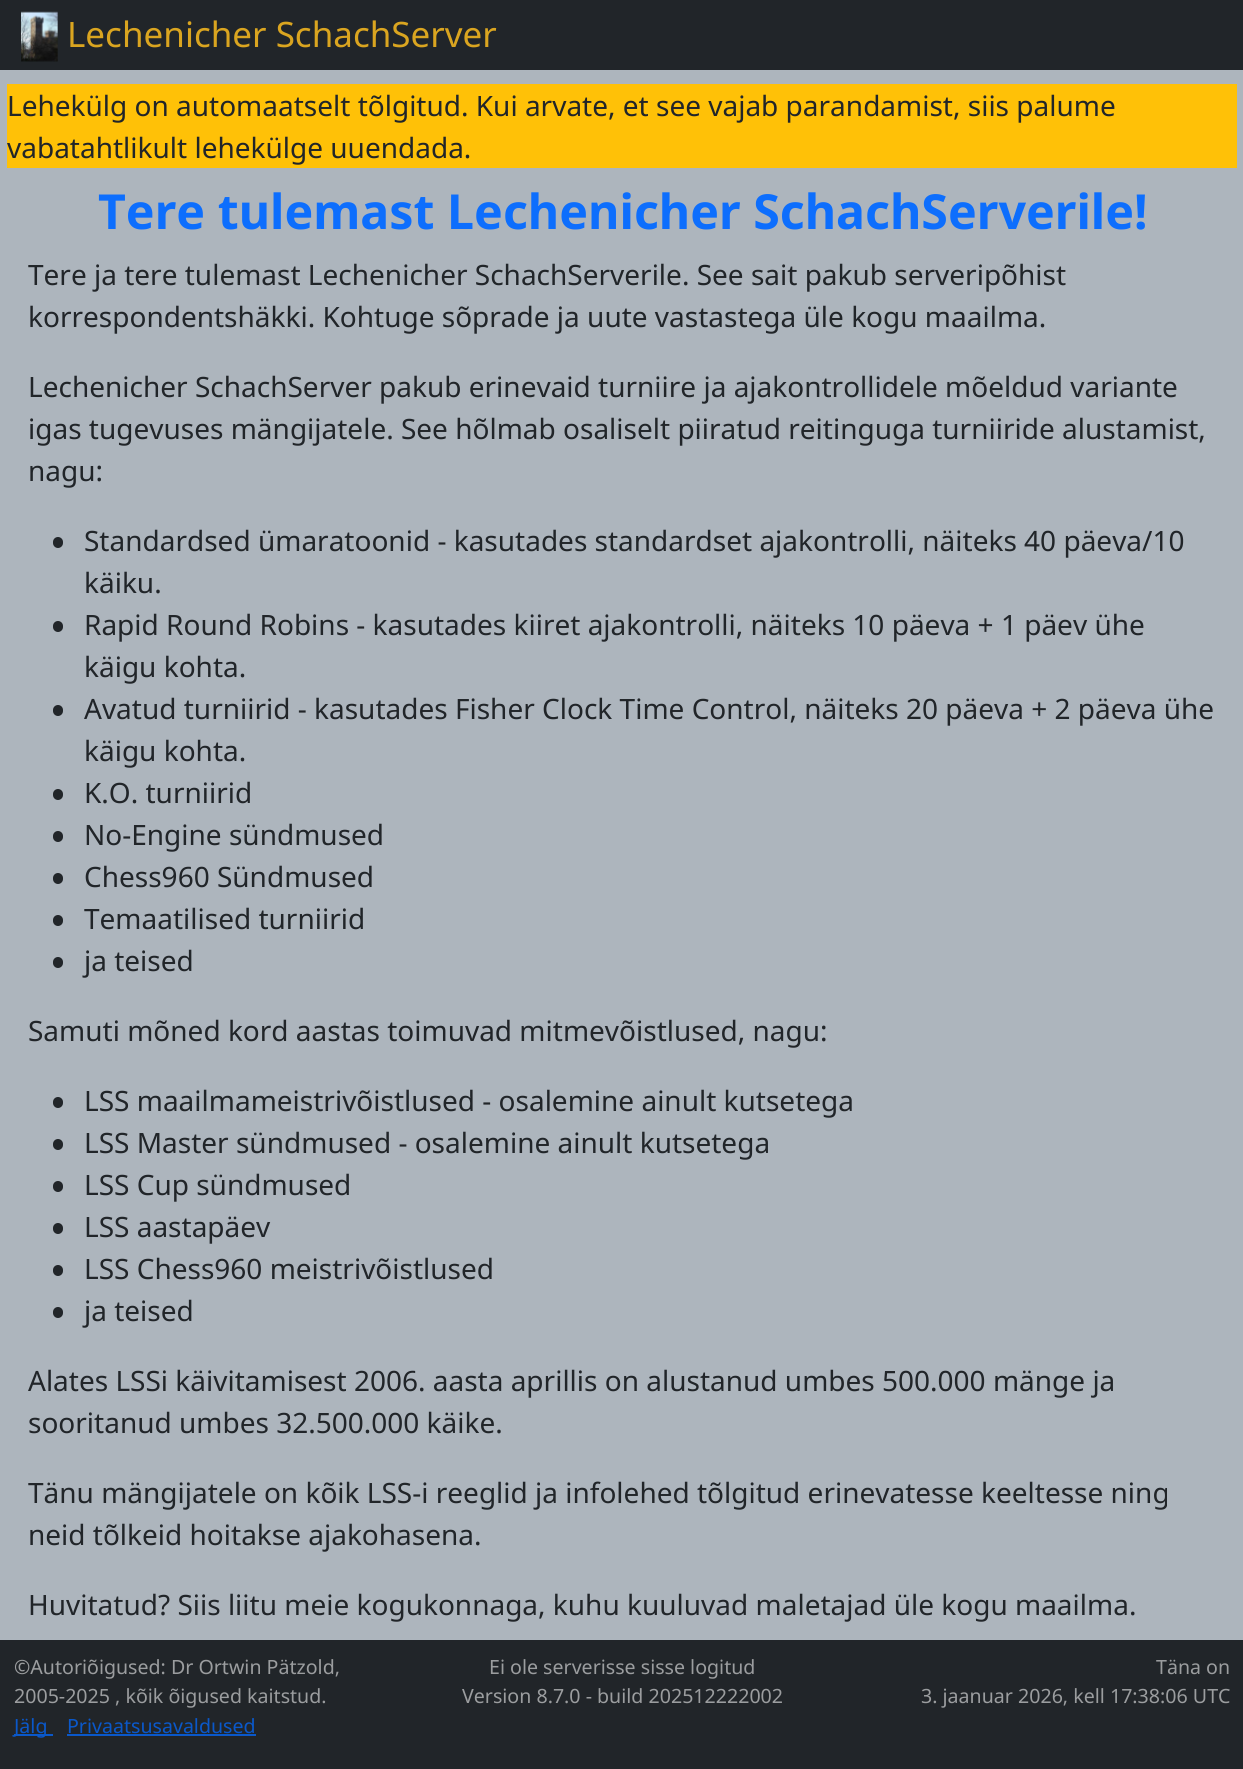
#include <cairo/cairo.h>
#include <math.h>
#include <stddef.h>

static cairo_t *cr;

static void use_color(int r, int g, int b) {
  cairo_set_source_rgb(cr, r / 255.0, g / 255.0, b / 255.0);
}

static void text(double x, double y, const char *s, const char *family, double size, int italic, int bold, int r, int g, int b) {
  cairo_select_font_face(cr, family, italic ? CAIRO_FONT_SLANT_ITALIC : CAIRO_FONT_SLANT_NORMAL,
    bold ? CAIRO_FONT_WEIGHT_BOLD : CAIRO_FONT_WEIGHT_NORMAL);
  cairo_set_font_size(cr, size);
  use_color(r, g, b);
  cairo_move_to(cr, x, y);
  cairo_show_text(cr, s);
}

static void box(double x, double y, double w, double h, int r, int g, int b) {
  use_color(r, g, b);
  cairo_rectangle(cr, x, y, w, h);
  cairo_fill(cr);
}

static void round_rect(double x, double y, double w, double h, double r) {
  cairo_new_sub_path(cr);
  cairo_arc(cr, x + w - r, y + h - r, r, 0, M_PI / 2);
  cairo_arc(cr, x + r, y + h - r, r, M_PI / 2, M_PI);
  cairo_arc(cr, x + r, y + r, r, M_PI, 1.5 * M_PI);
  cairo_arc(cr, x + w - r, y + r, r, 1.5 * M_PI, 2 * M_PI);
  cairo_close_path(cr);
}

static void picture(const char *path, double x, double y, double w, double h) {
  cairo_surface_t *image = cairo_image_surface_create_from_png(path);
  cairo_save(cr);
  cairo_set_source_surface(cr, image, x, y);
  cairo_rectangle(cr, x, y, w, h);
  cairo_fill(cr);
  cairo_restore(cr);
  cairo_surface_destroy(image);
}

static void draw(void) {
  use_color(173, 181, 189);
  cairo_paint(cr);
  box(0, 0, 1243, 70, 33, 37, 41);
  picture("img_01.png", 21, 11, 37, 51);
  box(7, 84, 1230, 84, 255, 193, 7);
  use_color(33, 37, 41);
  round_rect(53, 537, 10, 11, 5);
  cairo_fill(cr);
  round_rect(53, 621, 10, 11, 5);
  cairo_fill(cr);
  round_rect(53, 705, 10, 11, 5);
  cairo_fill(cr);
  round_rect(53, 789, 10, 11, 5);
  cairo_fill(cr);
  round_rect(53, 831, 10, 11, 5);
  cairo_fill(cr);
  round_rect(53, 873, 10, 11, 5);
  cairo_fill(cr);
  round_rect(53, 915, 10, 11, 5);
  cairo_fill(cr);
  round_rect(53, 957, 10, 11, 5);
  cairo_fill(cr);
  round_rect(53, 1097, 10, 11, 5);
  cairo_fill(cr);
  round_rect(53, 1139, 10, 11, 5);
  cairo_fill(cr);
  round_rect(53, 1181, 10, 11, 5);
  cairo_fill(cr);
  round_rect(53, 1223, 10, 11, 5);
  cairo_fill(cr);
  round_rect(53, 1265, 10, 11, 5);
  cairo_fill(cr);
  round_rect(53, 1307, 10, 11, 5);
  cairo_fill(cr);
  box(0, 1640, 1243, 129, 33, 37, 41);
  box(14, 1734, 39, 2, 10, 88, 202);
  box(67, 1734, 189, 2, 10, 88, 202);
  text(67, 47, "Lechenicher SchachServer", "Noto Sans", 35, 0, 0, 218, 165, 32);
  text(7, 116, "Lehekülg on automaatselt tõlgitud. Kui arvate, et see vajab parandamist, siis palume", "Noto Sans", 28, 0, 0, 33, 37, 41);
  text(7, 158, "vabatahtlikult lehekülge uuendada.", "Noto Sans", 28, 0, 0, 33, 37, 41);
  text(98, 229, "Tere tulemast Lechenicher SchachServerile!", "Noto Sans", 48.3, 0, 1, 13, 110, 253);
  text(28, 285, "Tere ja tere tulemast Lechenicher SchachServerile. See sait pakub serveripõhist", "Noto Sans", 28, 0, 0, 33, 37, 41);
  text(28, 327, "korrespondentshäkki. Kohtuge sõprade ja uute vastastega üle kogu maailma.", "Noto Sans", 28, 0, 0, 33, 37, 41);
  text(28, 397, "Lechenicher SchachServer pakub erinevaid turniire ja ajakontrollidele mõeldud variante", "Noto Sans", 28, 0, 0, 33, 37, 41);
  text(28, 439, "igas tugevuses mängijatele. See hõlmab osaliselt piiratud reitinguga turniiride alustamist,", "Noto Sans", 28, 0, 0, 33, 37, 41);
  text(28, 481, "nagu:", "Noto Sans", 28, 0, 0, 33, 37, 41);
  text(84, 551, "Standardsed ümaratoonid - kasutades standardset ajakontrolli, näiteks 40 päeva/10", "Noto Sans", 28, 0, 0, 33, 37, 41);
  text(84, 593, "käiku.", "Noto Sans", 28, 0, 0, 33, 37, 41);
  text(84, 635, "Rapid Round Robins - kasutades kiiret ajakontrolli, näiteks 10 päeva + 1 päev ühe", "Noto Sans", 28, 0, 0, 33, 37, 41);
  text(84, 677, "käigu kohta.", "Noto Sans", 28, 0, 0, 33, 37, 41);
  text(84, 719, "Avatud turniirid - kasutades Fisher Clock Time Control, näiteks 20 päeva + 2 päeva ühe", "Noto Sans", 28, 0, 0, 33, 37, 41);
  text(84, 761, "käigu kohta.", "Noto Sans", 28, 0, 0, 33, 37, 41);
  text(84, 803, "K.O. turniirid", "Noto Sans", 28, 0, 0, 33, 37, 41);
  text(84, 845, "No-Engine sündmused", "Noto Sans", 28, 0, 0, 33, 37, 41);
  text(84, 887, "Chess960 Sündmused", "Noto Sans", 28, 0, 0, 33, 37, 41);
  text(84, 929, "Temaatilised turniirid", "Noto Sans", 28, 0, 0, 33, 37, 41);
  text(84, 971, "ja teised", "Noto Sans", 28, 0, 0, 33, 37, 41);
  text(28, 1041, "Samuti mõned kord aastas toimuvad mitmevõistlused, nagu:", "Noto Sans", 28, 0, 0, 33, 37, 41);
  text(84, 1111, "LSS maailmameistrivõistlused - osalemine ainult kutsetega", "Noto Sans", 28, 0, 0, 33, 37, 41);
  text(84, 1153, "LSS Master sündmused - osalemine ainult kutsetega", "Noto Sans", 28, 0, 0, 33, 37, 41);
  text(84, 1195, "LSS Cup sündmused", "Noto Sans", 28, 0, 0, 33, 37, 41);
  text(84, 1237, "LSS aastapäev", "Noto Sans", 28, 0, 0, 33, 37, 41);
  text(84, 1279, "LSS Chess960 meistrivõistlused", "Noto Sans", 28, 0, 0, 33, 37, 41);
  text(84, 1321, "ja teised", "Noto Sans", 28, 0, 0, 33, 37, 41);
  text(28, 1391, "Alates LSSi käivitamisest 2006. aasta aprillis on alustanud umbes 500.000 mänge ja", "Noto Sans", 28, 0, 0, 33, 37, 41);
  text(28, 1433, "sooritanud umbes 32.500.000 käike.", "Noto Sans", 28, 0, 0, 33, 37, 41);
  text(28, 1503, "Tänu mängijatele on kõik LSS-i reeglid ja infolehed tõlgitud erinevatesse keeltesse ning", "Noto Sans", 28, 0, 0, 33, 37, 41);
  text(28, 1545, "neid tõlkeid hoitakse ajakohasena.", "Noto Sans", 28, 0, 0, 33, 37, 41);
  text(28, 1615, "Huvitatud? Siis liitu meie kogukonnaga, kuhu kuuluvad maletajad üle kogu maailma.", "Noto Sans", 28, 0, 0, 33, 37, 41);
  text(14, 1674, "©Autoriõigused: Dr Ortwin Pätzold,", "Noto Sans", 19.6, 0, 0, 155, 157, 159);
  text(14, 1703, "2005-2025 , kõik õigused kaitstud.", "Noto Sans", 19.6, 0, 0, 155, 157, 159);
  text(14, 1733, "Jälg", "Noto Sans", 19.6, 0, 0, 10, 88, 202);
  text(67, 1733, "Privaatsusavaldused", "Noto Sans", 19.6, 0, 0, 10, 88, 202);
  text(489, 1674, "Ei ole serverisse sisse logitud", "Noto Sans", 19.6, 0, 0, 155, 157, 159);
  text(462, 1703, "Version 8.7.0 - build 202512222002", "Noto Sans", 19.6, 0, 0, 155, 157, 159);
  text(1156, 1674, "Täna on", "Noto Sans", 19.6, 0, 0, 155, 157, 159);
  text(921, 1703, "3. jaanuar 2026, kell 17:38:06 UTC", "Noto Sans", 19.6, 0, 0, 155, 157, 159);
}

int main(void) {
  cairo_surface_t *surface = cairo_image_surface_create(CAIRO_FORMAT_RGB24, 1243, 1769);
  cr = cairo_create(surface);
  cairo_font_options_t *options = cairo_font_options_create();
  cairo_font_options_set_hint_metrics(options, CAIRO_HINT_METRICS_OFF);
  cairo_font_options_set_hint_style(options, CAIRO_HINT_STYLE_NONE);
  cairo_set_font_options(cr, options);
  cairo_set_miter_limit(cr, 4);
  draw();
  cairo_surface_write_to_png(surface, "out.png");
  cairo_font_options_destroy(options);
  cairo_destroy(cr);
  cairo_surface_destroy(surface);
  return 0;
}
